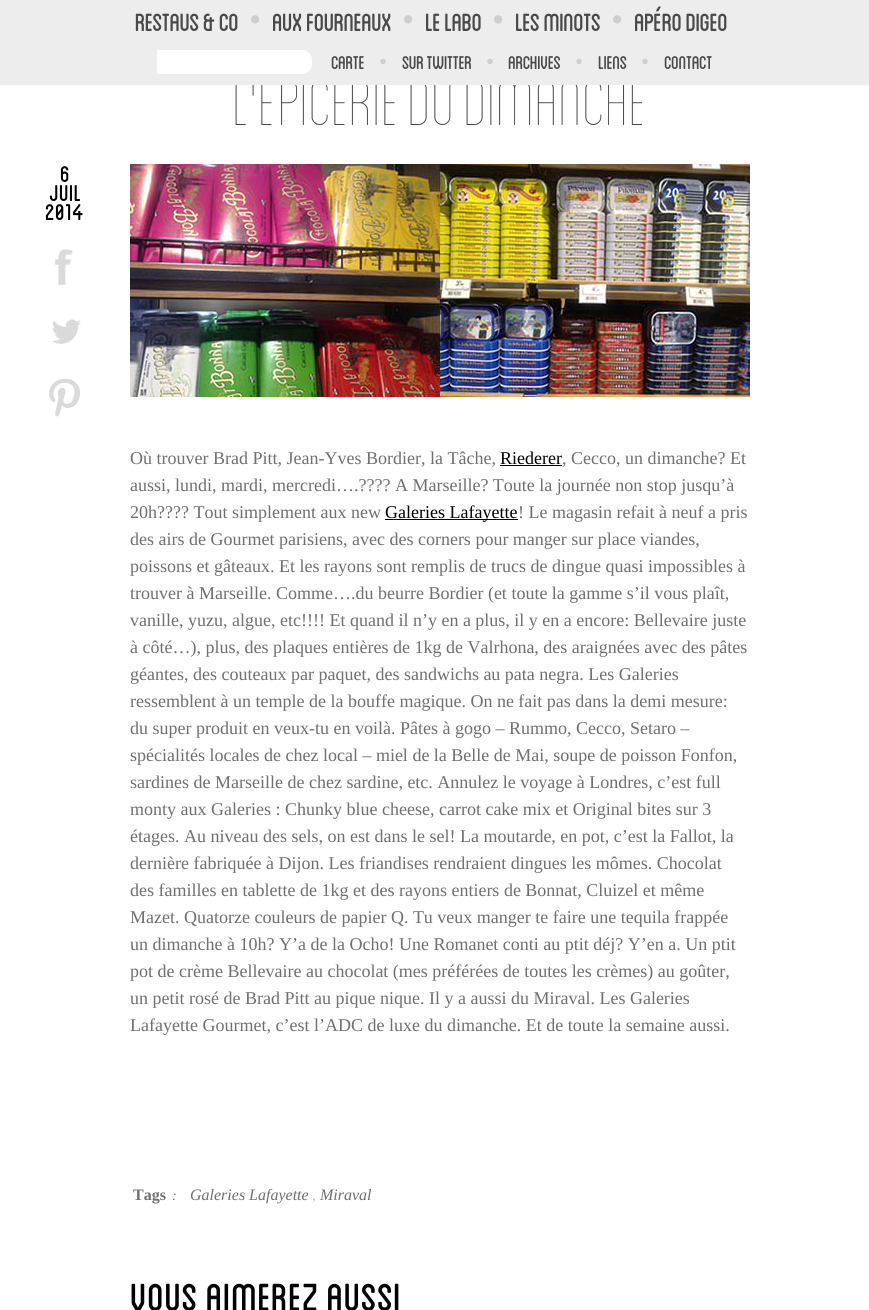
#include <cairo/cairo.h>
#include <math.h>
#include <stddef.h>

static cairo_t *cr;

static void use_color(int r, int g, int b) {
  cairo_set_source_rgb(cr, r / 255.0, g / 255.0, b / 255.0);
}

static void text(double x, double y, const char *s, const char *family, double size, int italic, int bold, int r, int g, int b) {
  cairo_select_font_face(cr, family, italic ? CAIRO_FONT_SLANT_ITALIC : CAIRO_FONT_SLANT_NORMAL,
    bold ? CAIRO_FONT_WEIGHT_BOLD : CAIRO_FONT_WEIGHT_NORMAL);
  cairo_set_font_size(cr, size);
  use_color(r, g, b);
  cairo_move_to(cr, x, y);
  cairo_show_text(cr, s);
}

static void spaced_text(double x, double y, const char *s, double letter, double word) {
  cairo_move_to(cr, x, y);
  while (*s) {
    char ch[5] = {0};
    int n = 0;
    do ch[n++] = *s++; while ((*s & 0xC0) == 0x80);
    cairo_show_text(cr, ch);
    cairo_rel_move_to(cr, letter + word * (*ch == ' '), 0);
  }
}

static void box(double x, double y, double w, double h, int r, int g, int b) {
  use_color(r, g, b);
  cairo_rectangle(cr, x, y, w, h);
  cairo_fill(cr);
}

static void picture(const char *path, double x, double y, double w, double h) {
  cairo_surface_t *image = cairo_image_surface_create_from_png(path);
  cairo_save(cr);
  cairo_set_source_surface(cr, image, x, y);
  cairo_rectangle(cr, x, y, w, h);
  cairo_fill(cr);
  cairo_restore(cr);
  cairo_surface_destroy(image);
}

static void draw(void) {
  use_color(255, 255, 255);
  cairo_paint(cr);
  picture("img_01.png", 55, 249, 18, 36);
  picture("img_02.png", 51, 319, 31, 25);
  picture("img_03.png", 49, 378, 31, 39);
  picture("img_04.png", 130, 164, 620, 233);
  box(500, 465, 62, 1, 0, 0, 0);
  box(385, 519, 133, 1, 0, 0, 0);
  cairo_select_font_face(cr, "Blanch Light", CAIRO_FONT_SLANT_NORMAL, CAIRO_FONT_WEIGHT_NORMAL);
  cairo_set_font_size(cr, 90);
  use_color(73, 73, 73);
  spaced_text(233, 125, "L’épicerie du dimanche", -4.5, 0);
  box(0, 0, 869, 85, 237, 237, 237);
  cairo_select_font_face(cr, "Blanch", CAIRO_FONT_SLANT_NORMAL, CAIRO_FONT_WEIGHT_NORMAL);
  cairo_set_font_size(cr, 35);
  use_color(73, 73, 73);
  spaced_text(634, 31, "Apéro Digeo", -1, 0);
  text(611, 31, "•", "Liberation Serif", 35, 0, 0, 206, 206, 206);
  cairo_select_font_face(cr, "Blanch", CAIRO_FONT_SLANT_NORMAL, CAIRO_FONT_WEIGHT_NORMAL);
  use_color(73, 73, 73);
  spaced_text(515, 31, "Les minots", -1, 0);
  text(492, 31, "•", "Liberation Serif", 35, 0, 0, 206, 206, 206);
  cairo_select_font_face(cr, "Blanch", CAIRO_FONT_SLANT_NORMAL, CAIRO_FONT_WEIGHT_NORMAL);
  use_color(73, 73, 73);
  spaced_text(425, 31, "Le Labo", -1, 0);
  text(402, 31, "•", "Liberation Serif", 35, 0, 0, 206, 206, 206);
  cairo_select_font_face(cr, "Blanch", CAIRO_FONT_SLANT_NORMAL, CAIRO_FONT_WEIGHT_NORMAL);
  use_color(73, 73, 73);
  spaced_text(272, 31, "Aux Fourneaux", -1, 0);
  text(249, 31, "•", "Liberation Serif", 35, 0, 0, 206, 206, 206);
  cairo_select_font_face(cr, "Blanch", CAIRO_FONT_SLANT_NORMAL, CAIRO_FONT_WEIGHT_NORMAL);
  use_color(73, 73, 73);
  spaced_text(135, 31, "Restaus & co", -1, 0);
  cairo_set_font_size(cr, 26);
  spaced_text(664, 69, "Contact", -0.75, 0);
  text(641, 69, "•", "Liberation Serif", 23, 0, 0, 206, 206, 206);
  cairo_select_font_face(cr, "Blanch", CAIRO_FONT_SLANT_NORMAL, CAIRO_FONT_WEIGHT_NORMAL);
  cairo_set_font_size(cr, 26);
  use_color(73, 73, 73);
  spaced_text(598, 69, "Liens", -0.75, 0);
  text(575, 69, "•", "Liberation Serif", 23, 0, 0, 206, 206, 206);
  cairo_select_font_face(cr, "Blanch", CAIRO_FONT_SLANT_NORMAL, CAIRO_FONT_WEIGHT_NORMAL);
  cairo_set_font_size(cr, 26);
  use_color(73, 73, 73);
  spaced_text(508, 69, "Archives", -0.75, 0);
  text(486, 69, "•", "Liberation Serif", 23, 0, 0, 206, 206, 206);
  cairo_select_font_face(cr, "Blanch", CAIRO_FONT_SLANT_NORMAL, CAIRO_FONT_WEIGHT_NORMAL);
  cairo_set_font_size(cr, 26);
  use_color(73, 73, 73);
  spaced_text(402, 69, "sur twitter", -0.75, 0);
  text(379, 69, "•", "Liberation Serif", 23, 0, 0, 206, 206, 206);
  cairo_select_font_face(cr, "Blanch", CAIRO_FONT_SLANT_NORMAL, CAIRO_FONT_WEIGHT_NORMAL);
  cairo_set_font_size(cr, 26);
  use_color(73, 73, 73);
  spaced_text(331, 69, "Carte", -0.75, 0);
  use_color(255, 255, 255);
  cairo_new_path(cr);
  cairo_move_to(cr, 157, 50);
  cairo_line_to(cr, 302, 50);
  cairo_curve_to(cr, 307.5, 50, 312, 54.5, 312, 60);
  cairo_line_to(cr, 312, 64);
  cairo_curve_to(cr, 312, 69.5, 307.5, 74, 302, 74);
  cairo_line_to(cr, 157, 74);
  cairo_close_path(cr);
  cairo_fill(cr);
  text(60, 182, "6", "Blanch", 32, 0, 0, 0, 0, 0);
  text(49, 201, "juil", "Blanch", 32, 0, 0, 0, 0, 0);
  text(45, 220, "2014", "Blanch", 32, 0, 0, 0, 0, 0);
  text(130, 464, "Où trouver Brad Pitt, Jean-Yves Bordier, la Tâche,", "Liberation Serif", 18, 0, 0, 112, 112, 112);
  text(500, 464, "Riederer", "Liberation Serif", 18, 0, 0, 0, 0, 0);
  text(562, 464, ", Cecco, un dimanche? Et", "Liberation Serif", 18, 0, 0, 112, 112, 112);
  text(130, 491, "aussi, lundi, mardi, mercredi….?\077?\077 A Marseille? Toute la journée non stop jusqu’à", "Liberation Serif", 18, 0, 0, 112, 112, 112);
  text(130, 518, "20h?\077?\077 Tout simplement aux new", "Liberation Serif", 18, 0, 0, 112, 112, 112);
  text(385, 518, "Galeries Lafayette", "Liberation Serif", 18, 0, 0, 0, 0, 0);
  text(518, 518, "! Le magasin refait à neuf a pris", "Liberation Serif", 18, 0, 0, 112, 112, 112);
  text(130, 545, "des airs de Gourmet parisiens, avec des corners pour manger sur place viandes,", "Liberation Serif", 18, 0, 0, 112, 112, 112);
  text(130, 572, "poissons et gâteaux. Et les rayons sont remplis de trucs de dingue quasi impossibles à", "Liberation Serif", 18, 0, 0, 112, 112, 112);
  text(130, 599, "trouver à Marseille. Comme….du beurre Bordier (et toute la gamme s’il vous plaît,", "Liberation Serif", 18, 0, 0, 112, 112, 112);
  text(130, 626, "vanille, yuzu, algue, etc!!!! Et quand il n’y en a plus, il y en a encore: Bellevaire juste", "Liberation Serif", 18, 0, 0, 112, 112, 112);
  text(130, 653, "à côté…), plus, des plaques entières de 1kg de Valrhona, des araignées avec des pâtes", "Liberation Serif", 18, 0, 0, 112, 112, 112);
  text(130, 680, "géantes, des couteaux par paquet, des sandwichs au pata negra. Les Galeries", "Liberation Serif", 18, 0, 0, 112, 112, 112);
  text(130, 707, "ressemblent à un temple de la bouffe magique. On ne fait pas dans la demi mesure:", "Liberation Serif", 18, 0, 0, 112, 112, 112);
  text(130, 734, "du super produit en veux-tu en voilà. Pâtes à gogo – Rummo, Cecco, Setaro –", "Liberation Serif", 18, 0, 0, 112, 112, 112);
  text(130, 761, "spécialités locales de chez local – miel de la Belle de Mai, soupe de poisson Fonfon,", "Liberation Serif", 18, 0, 0, 112, 112, 112);
  text(130, 788, "sardines de Marseille de chez sardine, etc. Annulez le voyage à Londres, c’est full", "Liberation Serif", 18, 0, 0, 112, 112, 112);
  text(130, 815, "monty aux Galeries : Chunky blue cheese, carrot cake mix et Original bites sur 3", "Liberation Serif", 18, 0, 0, 112, 112, 112);
  text(130, 842, "étages. Au niveau des sels, on est dans le sel! La moutarde, en pot, c’est la Fallot, la", "Liberation Serif", 18, 0, 0, 112, 112, 112);
  text(130, 869, "dernière fabriquée à Dijon. Les friandises rendraient dingues les mômes. Chocolat", "Liberation Serif", 18, 0, 0, 112, 112, 112);
  text(130, 896, "des familles en tablette de 1kg et des rayons entiers de Bonnat, Cluizel et même", "Liberation Serif", 18, 0, 0, 112, 112, 112);
  text(130, 923, "Mazet. Quatorze couleurs de papier Q. Tu veux manger te faire une tequila frappée", "Liberation Serif", 18, 0, 0, 112, 112, 112);
  text(130, 950, "un dimanche à 10h? Y’a de la Ocho! Une Romanet conti au ptit déj? Y’en a. Un ptit", "Liberation Serif", 18, 0, 0, 112, 112, 112);
  text(130, 977, "pot de crème Bellevaire au chocolat (mes préférées de toutes les crèmes) au goûter,", "Liberation Serif", 18, 0, 0, 112, 112, 112);
  text(130, 1004, "un petit rosé de Brad Pitt au pique nique. Il y a aussi du Miraval. Les Galeries", "Liberation Serif", 18, 0, 0, 112, 112, 112);
  text(130, 1031, "Lafayette Gourmet, c’est l’ADC de luxe du dimanche. Et de toute la semaine aussi.", "Liberation Serif", 18, 0, 0, 112, 112, 112);
  text(133, 1200, "Tags", "Liberation Serif", 16, 0, 1, 112, 112, 112);
  text(172, 1200, ":", "Liberation Serif", 14, 1, 0, 124, 124, 124);
  text(190, 1200, "Galeries Lafayette", "Liberation Serif", 16, 1, 0, 112, 112, 112);
  text(312, 1200, ",", "Liberation Serif", 16, 1, 0, 196, 196, 196);
  text(320, 1200, "Miraval", "Liberation Serif", 16, 1, 0, 112, 112, 112);
  text(130, 1311, "Vous aimerez aussi", "Blanch", 55, 0, 0, 0, 0, 0);
}

int main(void) {
  cairo_surface_t *surface = cairo_image_surface_create(CAIRO_FORMAT_RGB24, 869, 1310);
  cr = cairo_create(surface);
  cairo_font_options_t *options = cairo_font_options_create();
  cairo_font_options_set_hint_metrics(options, CAIRO_HINT_METRICS_OFF);
  cairo_font_options_set_hint_style(options, CAIRO_HINT_STYLE_NONE);
  cairo_set_font_options(cr, options);
  cairo_set_miter_limit(cr, 4);
  draw();
  cairo_surface_write_to_png(surface, "out.png");
  cairo_font_options_destroy(options);
  cairo_destroy(cr);
  cairo_surface_destroy(surface);
  return 0;
}
